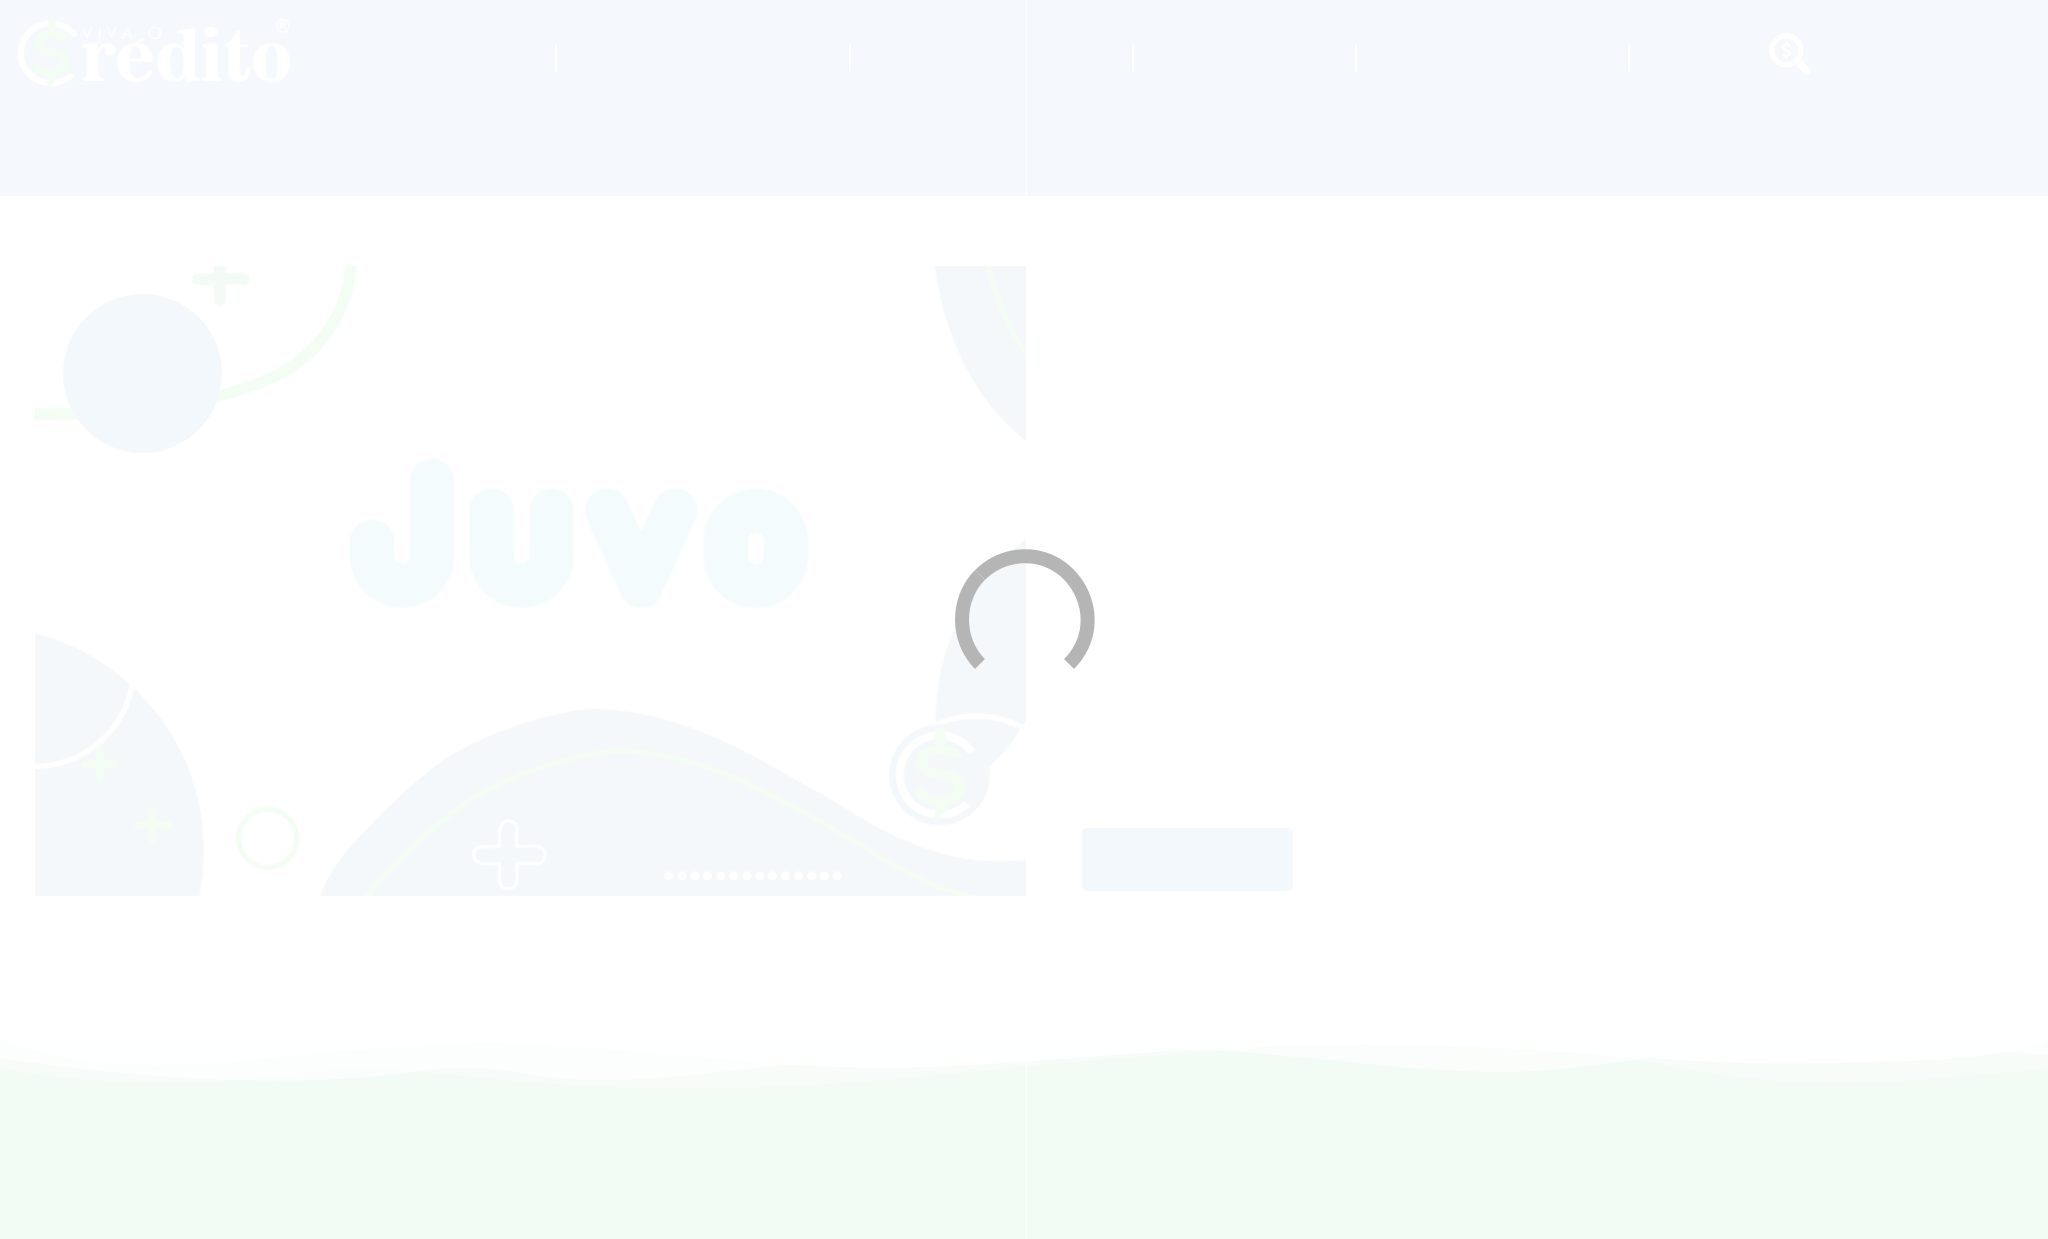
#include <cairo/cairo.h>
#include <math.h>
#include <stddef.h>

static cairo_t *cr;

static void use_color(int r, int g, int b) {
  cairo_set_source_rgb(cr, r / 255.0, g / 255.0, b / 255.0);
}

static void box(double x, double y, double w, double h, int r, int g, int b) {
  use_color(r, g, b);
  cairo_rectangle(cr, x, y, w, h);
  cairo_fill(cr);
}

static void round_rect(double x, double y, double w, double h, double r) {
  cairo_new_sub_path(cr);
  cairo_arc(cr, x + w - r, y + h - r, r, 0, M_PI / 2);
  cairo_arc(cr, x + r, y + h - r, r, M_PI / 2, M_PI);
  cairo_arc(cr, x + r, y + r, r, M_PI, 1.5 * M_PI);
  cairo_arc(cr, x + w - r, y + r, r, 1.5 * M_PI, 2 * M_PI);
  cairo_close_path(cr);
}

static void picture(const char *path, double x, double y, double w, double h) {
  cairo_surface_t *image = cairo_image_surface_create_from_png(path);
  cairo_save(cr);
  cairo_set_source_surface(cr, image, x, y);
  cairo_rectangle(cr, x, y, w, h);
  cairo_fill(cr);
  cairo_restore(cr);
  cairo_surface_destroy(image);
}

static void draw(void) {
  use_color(255, 255, 255);
  cairo_paint(cr);
  box(0, 0, 2048, 196, 34, 116, 192);
  picture("img_01.png", 17, 17, 274, 72);
  box(555, 44, 2, 28, 255, 255, 255);
  box(849, 44, 2, 28, 255, 255, 255);
  box(1132, 44, 2, 28, 255, 255, 255);
  box(1355, 44, 2, 28, 255, 255, 255);
  box(1628, 44, 2, 28, 255, 255, 255);
  picture("img_02.png", 1769, 33, 43, 43);
  picture("img_03.png", 35, 266, 991, 630);
  use_color(1, 112, 185);
  cairo_arc(cr, 142.5, 373.5, 79.5, 0, 2 * M_PI);
  cairo_fill(cr);
  cairo_save(cr);
  round_rect(63, 294, 159, 159, 79.5);
  cairo_clip(cr);
  box(82, 313, 121, 25, 1, 112, 185);
  box(82, 415, 121, 24, 1, 112, 185);
  cairo_restore(cr);
  round_rect(1082, 828, 211, 63, 5);
  cairo_fill(cr);
  picture("img_04.png", 0, 1040, 2048, 199);
  picture("img_05.png", 0, 1038, 2048, 51);
  cairo_set_source_rgba(cr, 1, 1, 1, 0.95);
  cairo_rectangle(cr, 0, 0, 1027, 1239);
  cairo_fill(cr);
  cairo_rectangle(cr, 1026, 0, 1022, 1239);
  cairo_fill(cr);
  cairo_new_path(cr);
  cairo_move_to(cr, 980, 664);
  cairo_curve_to(cr, 956, 640, 956, 599, 980, 575);
  use_color(181, 181, 181);
  cairo_set_line_width(cr, 14);
  cairo_stroke(cr);
  cairo_new_path(cr);
  cairo_move_to(cr, 980, 575);
  cairo_curve_to(cr, 989, 566, 1000, 560, 1012.5, 557.5);
  cairo_curve_to(cr, 1073, 545.5, 1113, 620, 1069, 664);
  cairo_stroke(cr);
}

int main(void) {
  cairo_surface_t *surface = cairo_image_surface_create(CAIRO_FORMAT_RGB24, 2048, 1239);
  cr = cairo_create(surface);
  cairo_font_options_t *options = cairo_font_options_create();
  cairo_font_options_set_hint_metrics(options, CAIRO_HINT_METRICS_OFF);
  cairo_font_options_set_hint_style(options, CAIRO_HINT_STYLE_NONE);
  cairo_set_font_options(cr, options);
  cairo_set_miter_limit(cr, 4);
  draw();
  cairo_surface_write_to_png(surface, "out.png");
  cairo_font_options_destroy(options);
  cairo_destroy(cr);
  cairo_surface_destroy(surface);
  return 0;
}
